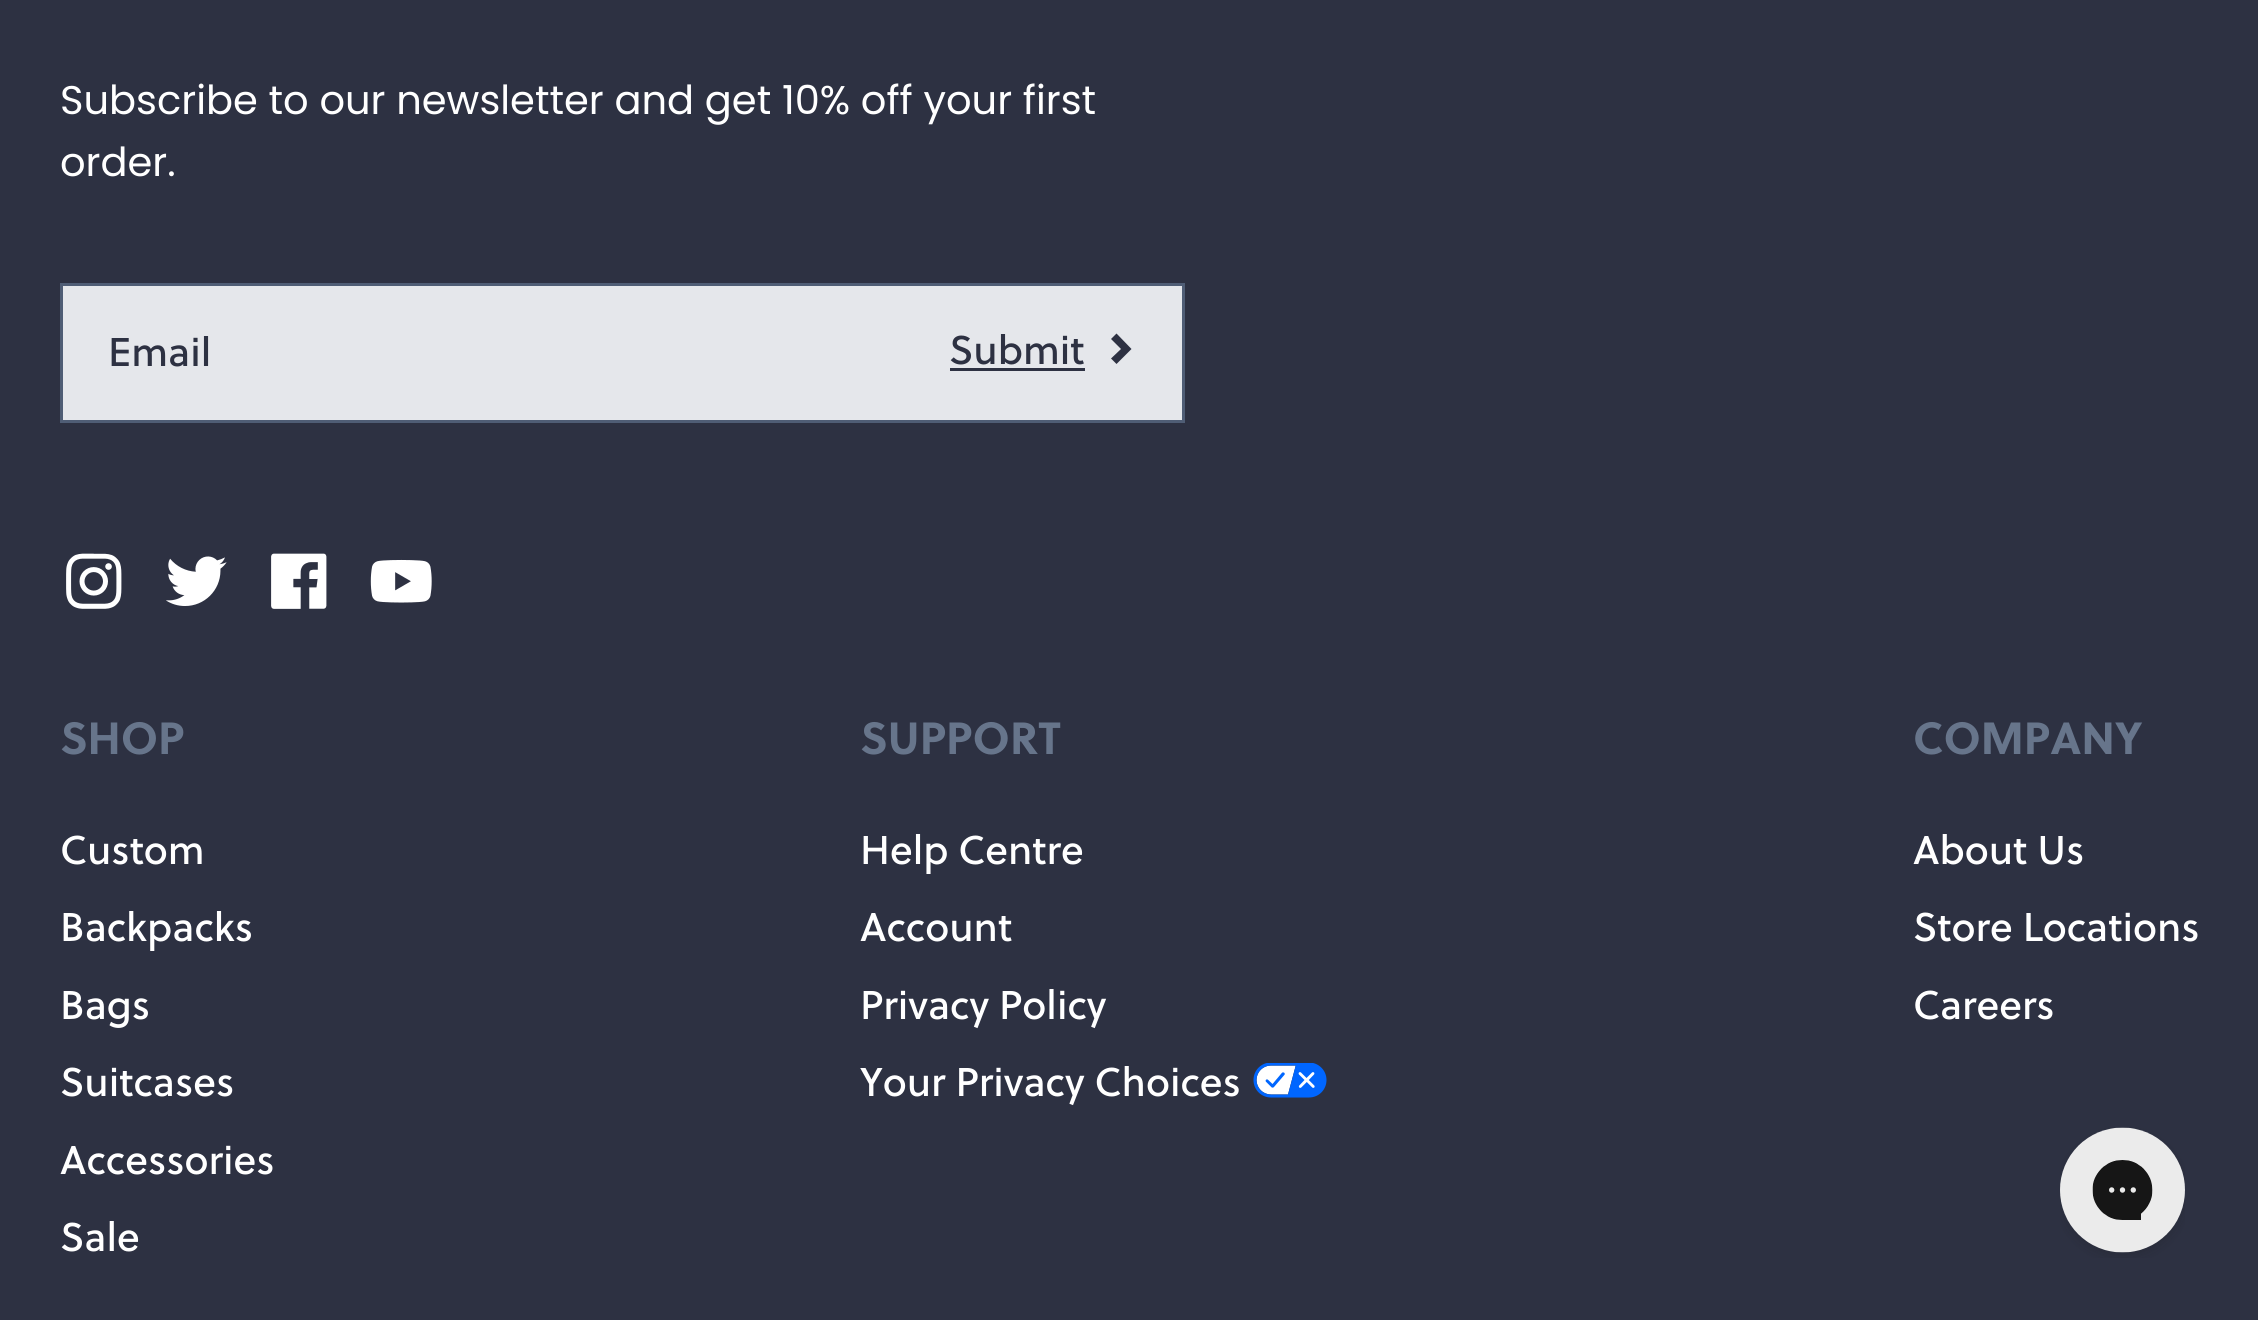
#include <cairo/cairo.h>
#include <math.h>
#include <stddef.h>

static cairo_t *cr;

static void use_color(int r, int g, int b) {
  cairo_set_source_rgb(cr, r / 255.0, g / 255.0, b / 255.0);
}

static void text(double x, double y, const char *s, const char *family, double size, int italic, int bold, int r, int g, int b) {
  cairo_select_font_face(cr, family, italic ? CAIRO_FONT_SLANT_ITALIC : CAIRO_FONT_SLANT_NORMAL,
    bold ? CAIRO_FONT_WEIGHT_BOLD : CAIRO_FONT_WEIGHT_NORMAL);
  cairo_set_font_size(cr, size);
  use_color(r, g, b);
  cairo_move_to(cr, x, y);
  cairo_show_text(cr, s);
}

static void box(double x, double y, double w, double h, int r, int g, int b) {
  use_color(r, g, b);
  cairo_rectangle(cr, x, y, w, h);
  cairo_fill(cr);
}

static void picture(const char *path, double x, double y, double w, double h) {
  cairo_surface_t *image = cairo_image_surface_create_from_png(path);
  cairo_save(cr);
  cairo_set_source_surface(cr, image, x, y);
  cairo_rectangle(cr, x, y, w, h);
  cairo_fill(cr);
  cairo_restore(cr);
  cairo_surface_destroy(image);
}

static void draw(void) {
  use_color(45, 49, 66);
  cairo_paint(cr);
  use_color(229, 231, 235);
  cairo_rectangle(cr, 61.5, 284.5, 1122, 137);
  cairo_fill_preserve(cr);
  use_color(79, 93, 117);
  cairo_set_line_width(cr, 3);
  cairo_stroke(cr);
  box(950, 368, 135, 3, 45, 49, 66);
  cairo_new_path(cr);
  cairo_move_to(cr, 1116.5, 364);
  cairo_line_to(cr, 1111, 358.5);
  cairo_line_to(cr, 1121, 349);
  cairo_line_to(cr, 1111, 339);
  cairo_line_to(cr, 1116.5, 333.5);
  cairo_line_to(cr, 1131.5, 349);
  cairo_close_path(cr);
  cairo_fill(cr);
  picture("img_01.png", 66, 553, 56, 56);
  picture("img_02.png", 166, 556, 61, 50);
  picture("img_03.png", 271, 553, 56, 56);
  picture("img_04.png", 370, 559, 62, 44);
  picture("img_05.png", 1253, 1063, 74, 35);
  picture("img_06.png", 2060, 1127, 125, 131);
  text(60, 114, "Subscribe to our newsletter and get 10% off your first", "Poppins", 40, 0, 0, 255, 255, 255);
  text(60, 176, "order.", "Poppins", 40, 0, 0, 255, 255, 255);
  text(108, 366, "Email", "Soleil", 40, 0, 0, 45, 49, 66);
  text(949, 364, "Submit", "Soleil", 40, 0, 0, 45, 49, 66);
  text(60, 754, "SHOP", "Soleil", 45, 0, 1, 103, 117, 139);
  text(60, 864, "Custom", "Soleil", 40, 0, 0, 255, 255, 255);
  text(60, 941, "Backpacks", "Soleil", 40, 0, 0, 255, 255, 255);
  text(60, 1019, "Bags", "Soleil", 40, 0, 0, 255, 255, 255);
  text(60, 1096, "Suitcases", "Soleil", 40, 0, 0, 255, 255, 255);
  text(60, 1174, "Accessories", "Soleil", 40, 0, 0, 255, 255, 255);
  text(60, 1251, "Sale", "Soleil", 40, 0, 0, 255, 255, 255);
  text(860, 754, "SUPPORT", "Soleil", 45, 0, 1, 103, 117, 139);
  text(860, 864, "Help Centre", "Soleil", 40, 0, 0, 255, 255, 255);
  text(860, 941, "Account", "Soleil", 40, 0, 0, 255, 255, 255);
  text(860, 1019, "Privacy Policy", "Soleil", 40, 0, 0, 255, 255, 255);
  text(860, 1096, "Your Privacy Choices", "Soleil", 40, 0, 0, 255, 255, 255);
  text(1913, 754, "COMPANY", "Soleil", 45, 0, 1, 103, 117, 139);
  text(1913, 864, "About Us", "Soleil", 40, 0, 0, 255, 255, 255);
  text(1913, 941, "Store Locations", "Soleil", 40, 0, 0, 255, 255, 255);
  text(1913, 1019, "Careers", "Soleil", 40, 0, 0, 255, 255, 255);
}

int main(void) {
  cairo_surface_t *surface = cairo_image_surface_create(CAIRO_FORMAT_RGB24, 2258, 1320);
  cr = cairo_create(surface);
  cairo_font_options_t *options = cairo_font_options_create();
  cairo_font_options_set_hint_metrics(options, CAIRO_HINT_METRICS_OFF);
  cairo_font_options_set_hint_style(options, CAIRO_HINT_STYLE_NONE);
  cairo_set_font_options(cr, options);
  cairo_set_miter_limit(cr, 4);
  draw();
  cairo_surface_write_to_png(surface, "out.png");
  cairo_font_options_destroy(options);
  cairo_destroy(cr);
  cairo_surface_destroy(surface);
  return 0;
}
